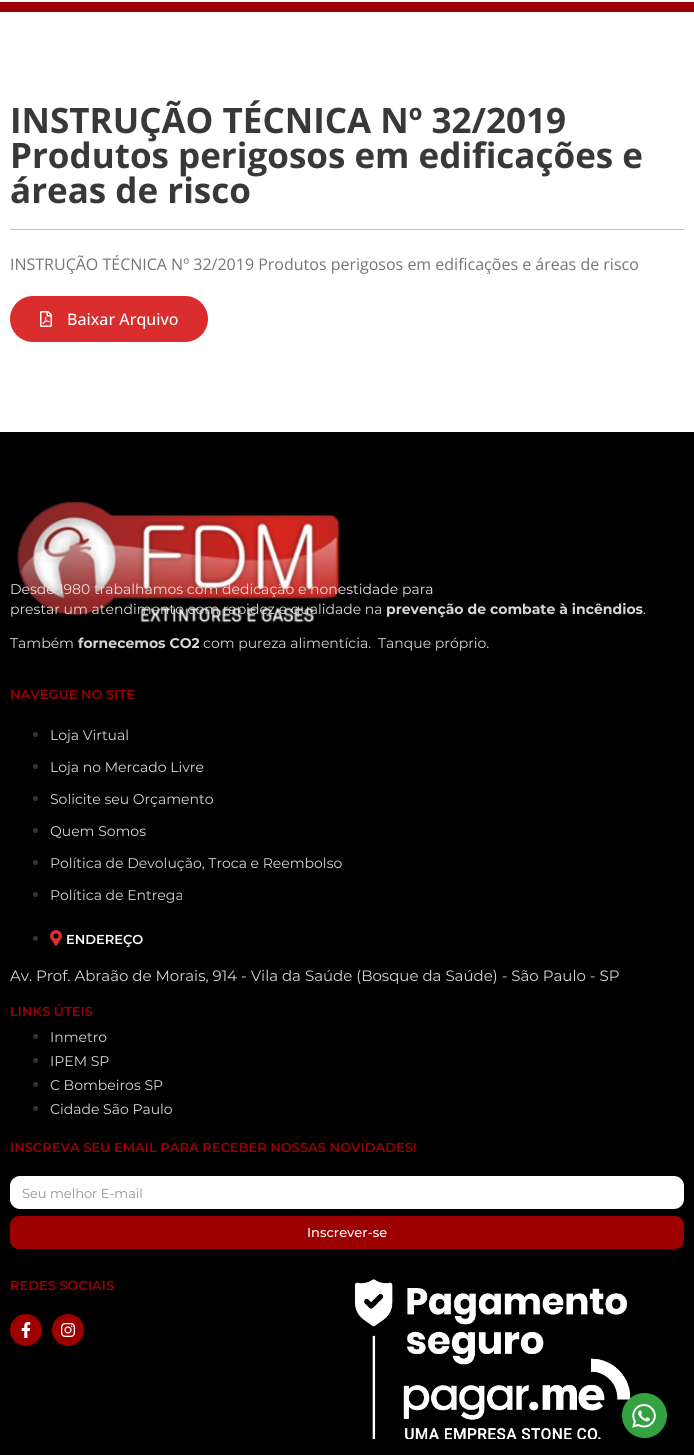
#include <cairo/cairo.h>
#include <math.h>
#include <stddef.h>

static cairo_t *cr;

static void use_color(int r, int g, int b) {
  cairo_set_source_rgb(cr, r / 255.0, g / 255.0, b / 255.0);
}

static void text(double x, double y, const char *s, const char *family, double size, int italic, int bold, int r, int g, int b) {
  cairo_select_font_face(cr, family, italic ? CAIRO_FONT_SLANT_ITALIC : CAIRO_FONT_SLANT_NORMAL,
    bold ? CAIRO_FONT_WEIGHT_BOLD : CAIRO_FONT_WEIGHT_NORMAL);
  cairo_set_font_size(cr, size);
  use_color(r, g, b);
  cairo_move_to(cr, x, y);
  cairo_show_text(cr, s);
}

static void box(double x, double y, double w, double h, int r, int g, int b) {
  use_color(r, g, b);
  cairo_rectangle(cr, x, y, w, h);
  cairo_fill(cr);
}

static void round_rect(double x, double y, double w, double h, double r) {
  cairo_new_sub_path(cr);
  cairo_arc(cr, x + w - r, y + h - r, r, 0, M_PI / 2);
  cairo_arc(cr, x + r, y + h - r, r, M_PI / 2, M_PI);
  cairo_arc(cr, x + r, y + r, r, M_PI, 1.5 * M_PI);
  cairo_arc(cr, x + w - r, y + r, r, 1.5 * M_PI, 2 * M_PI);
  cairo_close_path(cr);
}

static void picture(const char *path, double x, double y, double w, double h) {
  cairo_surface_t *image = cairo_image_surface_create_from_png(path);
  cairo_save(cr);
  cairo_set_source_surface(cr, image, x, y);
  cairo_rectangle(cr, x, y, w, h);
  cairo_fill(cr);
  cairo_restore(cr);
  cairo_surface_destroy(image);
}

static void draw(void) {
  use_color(255, 255, 255);
  cairo_paint(cr);
  box(0, 2, 694, 10, 156, 0, 0);
  box(10, 229, 674, 1, 193, 193, 193);
  use_color(218, 45, 45);
  round_rect(10, 296, 198, 46, 23);
  cairo_fill(cr);
  picture("img_01.png", 40, 311, 12, 16);
  box(0, 432, 694, 1023, 0, 0, 0);
  picture("img_02.png", 16, 501, 324, 122);
  use_color(51, 51, 51);
  cairo_arc(cr, 35.5, 734.5, 2.5, 0, 2 * M_PI);
  cairo_fill(cr);
  cairo_arc(cr, 35.5, 766.5, 2.5, 0, 2 * M_PI);
  cairo_fill(cr);
  cairo_arc(cr, 35.5, 798.5, 2.5, 0, 2 * M_PI);
  cairo_fill(cr);
  cairo_arc(cr, 35.5, 830.5, 2.5, 0, 2 * M_PI);
  cairo_fill(cr);
  cairo_arc(cr, 35.5, 862.5, 2.5, 0, 2 * M_PI);
  cairo_fill(cr);
  cairo_arc(cr, 35.5, 894.5, 2.5, 0, 2 * M_PI);
  cairo_fill(cr);
  cairo_arc(cr, 35.5, 938.5, 2.5, 0, 2 * M_PI);
  cairo_fill(cr);
  picture("img_03.png", 50, 930, 12, 16);
  cairo_arc(cr, 35.5, 1036.5, 2.5, 0, 2 * M_PI);
  cairo_fill(cr);
  cairo_arc(cr, 35.5, 1060.5, 2.5, 0, 2 * M_PI);
  cairo_fill(cr);
  cairo_arc(cr, 35.5, 1084.5, 2.5, 0, 2 * M_PI);
  cairo_fill(cr);
  cairo_arc(cr, 35.5, 1108.5, 2.5, 0, 2 * M_PI);
  cairo_fill(cr);
  use_color(255, 255, 255);
  round_rect(10, 1176, 674, 33, 10);
  cairo_fill(cr);
  use_color(156, 0, 0);
  round_rect(10, 1216, 674, 33, 9);
  cairo_fill(cr);
  cairo_arc(cr, 26, 1330, 16, 0, 2 * M_PI);
  cairo_fill(cr);
  picture("img_04.png", 21, 1322, 10, 16);
  cairo_arc(cr, 68, 1330, 16, 0, 2 * M_PI);
  cairo_fill(cr);
  picture("img_05.png", 61, 1323, 14, 14);
  picture("img_06.png", 355, 1279, 275, 160);
  use_color(52, 162, 67);
  cairo_arc(cr, 644.5, 1415.5, 22.5, 0, 2 * M_PI);
  cairo_fill(cr);
  picture("img_07.png", 632, 1404, 24, 24);
  text(10, 133, "INSTRUÇÃO TÉCNICA Nº 32/2019", "Open Sans", 35, 0, 1, 56, 56, 56);
  text(10, 168, "Produtos perigosos em edificações e", "Open Sans", 35, 0, 1, 56, 56, 56);
  text(10, 203, "áreas de risco", "Open Sans", 35, 0, 1, 56, 56, 56);
  text(10, 270, "INSTRUÇÃO TÉCNICA Nº 32/2019 Produtos perigosos em edificações e áreas de risco", "Open Sans", 16, 0, 0, 117, 117, 117);
  text(67, 325, "Baixar Arquivo", "Open Sans Medium", 16, 0, 0, 255, 255, 255);
  text(10, 594, "Desde 1980 trabalhamos com dedicação e honestidade para", "Montserrat", 14, 0, 0, 235, 222, 222);
  text(10, 614, "prestar um atendimento com rapidez e qualidade na", "Montserrat", 14, 0, 0, 221, 219, 219);
  text(386, 614, "prevenção de combate à incêndios", "Montserrat", 14, 0, 1, 214, 214, 214);
  text(643, 614, ".", "Montserrat", 14, 0, 0, 214, 214, 214);
  text(10, 648, "Também", "Montserrat", 14, 0, 0, 214, 214, 214);
  text(78, 648, "fornecemos CO2", "Montserrat", 14, 0, 1, 214, 214, 214);
  text(203, 648, "com pureza alimentícia.", "Montserrat", 14, 0, 0, 214, 214, 214);
  text(378, 648, "Tanque próprio.", "Montserrat", 14, 0, 0, 214, 214, 214);
  text(10, 699, "NAVEGUE NO SITE", "Montserrat SemiBold", 13, 0, 0, 156, 0, 0);
  text(50, 740, "Loja Virtual", "Montserrat", 14, 0, 0, 214, 214, 214);
  text(50, 772, "Loja no Mercado Livre", "Montserrat", 14, 0, 0, 214, 214, 214);
  text(50, 804, "Solicite seu Orçamento", "Montserrat", 14, 0, 0, 214, 214, 214);
  text(50, 836, "Quem Somos", "Montserrat", 14, 0, 0, 214, 214, 214);
  text(50, 868, "Política de Devolução, Troca e Reembolso", "Montserrat", 14, 0, 0, 214, 214, 214);
  text(50, 900, "Política de Entrega", "Montserrat", 14, 0, 0, 214, 214, 214);
  text(66, 944, "ENDEREÇO", "Montserrat SemiBold", 13, 0, 0, 255, 255, 255);
  text(10, 981, "Av. Prof. Abraão de Morais, 914 - Vila da Saúde (Bosque da Saúde) - São Paulo - SP", "Montserrat", 15, 0, 0, 214, 214, 214);
  text(10, 1016, "LINKS ÚTEIS", "Montserrat SemiBold", 13, 0, 0, 156, 0, 0);
  text(50, 1042, "Inmetro", "Montserrat", 14, 0, 0, 214, 214, 214);
  text(50, 1066, "IPEM SP", "Montserrat", 14, 0, 0, 214, 214, 214);
  text(50, 1090, "C Bombeiros SP", "Montserrat", 14, 0, 0, 214, 214, 214);
  text(50, 1114, "Cidade São Paulo", "Montserrat", 14, 0, 0, 214, 214, 214);
  text(10, 1152, "INSCREVA SEU EMAIL PARA RECEBER NOSSAS NOVIDADES!", "Montserrat SemiBold", 13, 0, 0, 156, 0, 0);
  text(22, 1198, "Seu melhor E-mail", "Montserrat", 13, 0, 0, 146, 146, 146);
  text(307, 1237, "Inscrever-se", "Montserrat Medium", 13, 0, 0, 255, 255, 255);
  text(10, 1290, "REDES SOCIAIS", "Montserrat SemiBold", 13, 0, 0, 156, 0, 0);
}

int main(void) {
  cairo_surface_t *surface = cairo_image_surface_create(CAIRO_FORMAT_RGB24, 694, 1455);
  cr = cairo_create(surface);
  cairo_font_options_t *options = cairo_font_options_create();
  cairo_font_options_set_hint_metrics(options, CAIRO_HINT_METRICS_OFF);
  cairo_font_options_set_hint_style(options, CAIRO_HINT_STYLE_NONE);
  cairo_set_font_options(cr, options);
  cairo_set_miter_limit(cr, 4);
  draw();
  cairo_surface_write_to_png(surface, "out.png");
  cairo_font_options_destroy(options);
  cairo_destroy(cr);
  cairo_surface_destroy(surface);
  return 0;
}
